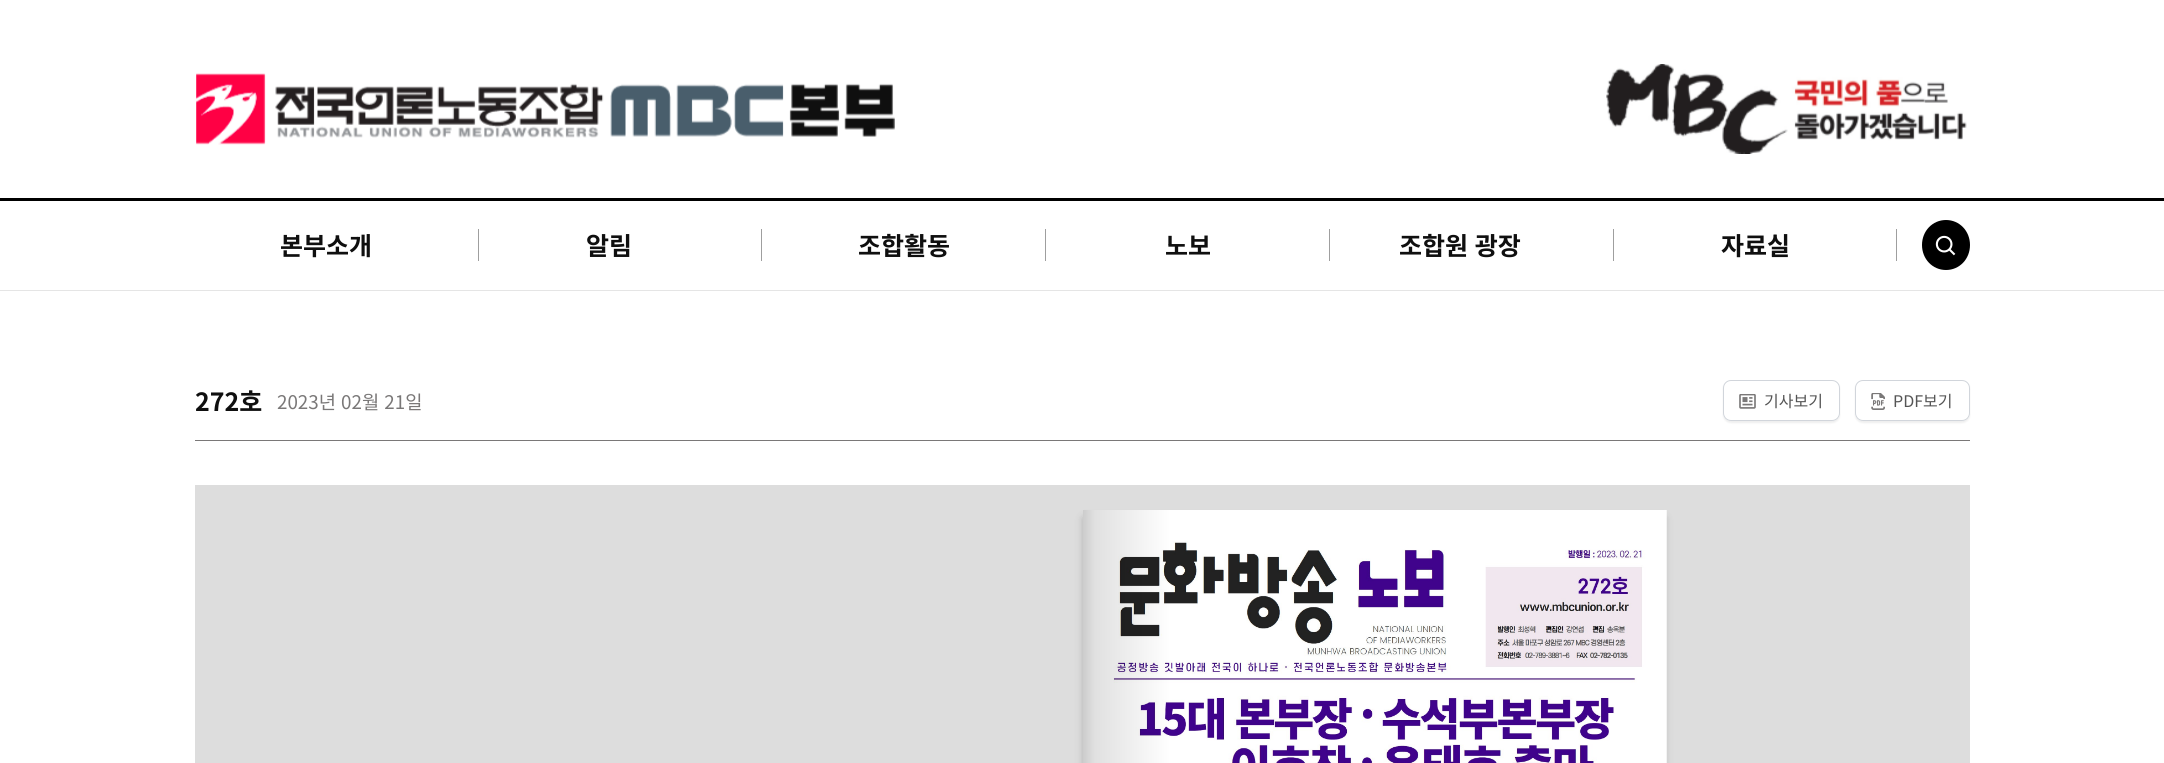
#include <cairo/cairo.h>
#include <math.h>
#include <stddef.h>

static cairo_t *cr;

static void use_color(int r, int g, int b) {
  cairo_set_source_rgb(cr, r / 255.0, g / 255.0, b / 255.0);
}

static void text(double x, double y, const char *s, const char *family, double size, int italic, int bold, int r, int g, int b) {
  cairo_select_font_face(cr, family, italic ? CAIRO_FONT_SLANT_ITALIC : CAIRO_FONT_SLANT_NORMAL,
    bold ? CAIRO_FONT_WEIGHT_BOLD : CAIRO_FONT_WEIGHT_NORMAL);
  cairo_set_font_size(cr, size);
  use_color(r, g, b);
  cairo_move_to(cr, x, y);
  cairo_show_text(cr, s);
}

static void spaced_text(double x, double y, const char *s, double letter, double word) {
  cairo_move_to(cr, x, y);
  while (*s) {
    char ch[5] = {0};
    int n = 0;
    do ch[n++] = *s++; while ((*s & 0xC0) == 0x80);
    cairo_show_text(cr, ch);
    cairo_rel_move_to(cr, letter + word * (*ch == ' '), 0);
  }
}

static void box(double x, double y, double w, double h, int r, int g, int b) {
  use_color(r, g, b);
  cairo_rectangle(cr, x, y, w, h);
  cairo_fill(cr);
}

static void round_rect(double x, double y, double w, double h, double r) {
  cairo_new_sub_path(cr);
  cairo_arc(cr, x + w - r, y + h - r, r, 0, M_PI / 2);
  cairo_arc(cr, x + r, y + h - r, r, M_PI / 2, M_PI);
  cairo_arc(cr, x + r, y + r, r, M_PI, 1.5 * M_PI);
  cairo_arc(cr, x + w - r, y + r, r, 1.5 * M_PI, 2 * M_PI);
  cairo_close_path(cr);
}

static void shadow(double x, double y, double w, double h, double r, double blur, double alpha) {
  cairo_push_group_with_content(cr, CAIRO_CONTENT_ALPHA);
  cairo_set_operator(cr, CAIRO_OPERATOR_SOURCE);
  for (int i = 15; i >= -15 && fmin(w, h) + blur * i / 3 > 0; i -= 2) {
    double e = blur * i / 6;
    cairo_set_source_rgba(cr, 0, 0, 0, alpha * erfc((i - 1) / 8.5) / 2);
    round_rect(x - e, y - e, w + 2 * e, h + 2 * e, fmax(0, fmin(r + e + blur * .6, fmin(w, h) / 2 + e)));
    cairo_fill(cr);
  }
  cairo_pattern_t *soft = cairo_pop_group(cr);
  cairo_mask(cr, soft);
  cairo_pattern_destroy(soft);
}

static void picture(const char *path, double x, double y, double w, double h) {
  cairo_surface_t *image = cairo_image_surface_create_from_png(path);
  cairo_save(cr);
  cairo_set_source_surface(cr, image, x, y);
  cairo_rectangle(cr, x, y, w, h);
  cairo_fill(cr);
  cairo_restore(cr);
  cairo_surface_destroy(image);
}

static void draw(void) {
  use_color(255, 255, 255);
  cairo_paint(cr);
  picture("img_01.png", 196, 73, 699, 72);
  picture("img_02.png", 1606, 64, 361, 90);
  box(0, 198, 2164, 3, 0, 0, 0);
  box(0, 290, 2164, 1, 229, 229, 229);
  box(478, 229, 1, 32, 159, 159, 159);
  box(761, 229, 1, 32, 159, 159, 159);
  box(1045, 229, 1, 32, 159, 159, 159);
  box(1329, 229, 1, 32, 159, 159, 159);
  box(1613, 229, 1, 32, 159, 159, 159);
  box(1896, 229, 1, 32, 159, 159, 159);
  use_color(0, 0, 0);
  cairo_new_path(cr);
  cairo_move_to(cr, 1946, 220);
  cairo_curve_to(cr, 1959.5, 220, 1970, 231, 1970, 245);
  cairo_curve_to(cr, 1970, 259, 1959.5, 270, 1946, 270);
  cairo_curve_to(cr, 1932.5, 270, 1922, 259, 1922, 245);
  cairo_curve_to(cr, 1922, 231, 1932.5, 220, 1946, 220);
  cairo_close_path(cr);
  cairo_fill(cr);
  picture("img_03.png", 1935, 235, 21, 21);
  box(195, 440, 1775, 1, 122, 120, 120);
  cairo_save(cr);
  cairo_set_fill_rule(cr, CAIRO_FILL_RULE_EVEN_ODD);
  cairo_new_path(cr);
  cairo_move_to(cr, 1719, 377);
  cairo_line_to(cr, 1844, 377);
  cairo_line_to(cr, 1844, 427);
  cairo_line_to(cr, 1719, 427);
  cairo_close_path(cr);
  cairo_move_to(cr, 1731, 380);
  cairo_line_to(cr, 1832, 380);
  cairo_curve_to(cr, 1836.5, 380, 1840, 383.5, 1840, 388);
  cairo_line_to(cr, 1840, 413);
  cairo_curve_to(cr, 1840, 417.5, 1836.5, 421, 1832, 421);
  cairo_line_to(cr, 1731, 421);
  cairo_curve_to(cr, 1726.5, 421, 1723, 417.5, 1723, 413);
  cairo_line_to(cr, 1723, 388);
  cairo_curve_to(cr, 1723, 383.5, 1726.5, 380, 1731, 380);
  cairo_close_path(cr);
  cairo_clip(cr);
  use_color(0, 0, 0);
  shadow(1723, 381, 117, 42, 8, 1, 0.07);
  cairo_restore(cr);
  round_rect(1723.5, 380.5, 116, 40, 7.5);
  use_color(209, 213, 219);
  cairo_set_line_width(cr, 1);
  cairo_stroke(cr);
  picture("img_04.png", 1739, 394, 17, 15);
  cairo_save(cr);
  cairo_set_fill_rule(cr, CAIRO_FILL_RULE_EVEN_ODD);
  cairo_new_path(cr);
  cairo_move_to(cr, 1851, 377);
  cairo_line_to(cr, 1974, 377);
  cairo_line_to(cr, 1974, 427);
  cairo_line_to(cr, 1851, 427);
  cairo_close_path(cr);
  cairo_move_to(cr, 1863, 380);
  cairo_line_to(cr, 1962, 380);
  cairo_curve_to(cr, 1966.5, 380, 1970, 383.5, 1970, 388);
  cairo_line_to(cr, 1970, 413);
  cairo_curve_to(cr, 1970, 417.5, 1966.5, 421, 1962, 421);
  cairo_line_to(cr, 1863, 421);
  cairo_curve_to(cr, 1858.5, 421, 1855, 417.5, 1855, 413);
  cairo_line_to(cr, 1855, 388);
  cairo_curve_to(cr, 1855, 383.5, 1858.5, 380, 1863, 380);
  cairo_close_path(cr);
  cairo_clip(cr);
  use_color(0, 0, 0);
  shadow(1855, 381, 115, 42, 8, 1, 0.07);
  cairo_restore(cr);
  round_rect(1855.5, 380.5, 114, 40, 7.5);
  cairo_stroke(cr);
  picture("img_05.png", 1871, 393, 14, 17);
  box(195, 485, 1775, 278, 221, 221, 221);
  use_color(0, 0, 0);
  shadow(1083, 518, 582, 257, 0, 4, 0.2);
  picture("img_06.png", 1083, 510, 583, 253);
  picture("img_07.png", 1666, 510, 1, 253);
  text(280, 255, "본부소개", "Noto Sans KR", 25, 0, 1, 15, 15, 15);
  text(586, 255, "알림", "Noto Sans KR", 25, 0, 1, 15, 15, 15);
  text(858, 255, "조합활동", "Noto Sans KR", 25, 0, 1, 15, 15, 15);
  text(1165, 255, "노보", "Noto Sans KR", 25, 0, 1, 15, 15, 15);
  spaced_text(1399, 255, "조합원 광장", 0, 1);
  text(1721, 255, "자료실", "Noto Sans KR", 25, 0, 1, 15, 15, 15);
  text(195, 411, "272호", "Noto Sans KR", 25, 0, 1, 15, 15, 15);
  cairo_select_font_face(cr, "Noto Sans KR", CAIRO_FONT_SLANT_NORMAL, CAIRO_FONT_WEIGHT_NORMAL);
  cairo_set_font_size(cr, 18.75);
  use_color(122, 120, 120);
  spaced_text(277, 409, "2023년 02월 21일", 0, 1);
  text(1764, 407, "기사보기", "Noto Sans KR", 16, 0, 0, 85, 85, 85);
  text(1893, 407, "PDF보기", "Noto Sans KR", 16, 0, 0, 85, 85, 85);
}

int main(void) {
  cairo_surface_t *surface = cairo_image_surface_create(CAIRO_FORMAT_RGB24, 2164, 763);
  cr = cairo_create(surface);
  cairo_font_options_t *options = cairo_font_options_create();
  cairo_font_options_set_hint_metrics(options, CAIRO_HINT_METRICS_OFF);
  cairo_font_options_set_hint_style(options, CAIRO_HINT_STYLE_NONE);
  cairo_set_font_options(cr, options);
  cairo_set_miter_limit(cr, 4);
  draw();
  cairo_surface_write_to_png(surface, "out.png");
  cairo_font_options_destroy(options);
  cairo_destroy(cr);
  cairo_surface_destroy(surface);
  return 0;
}
